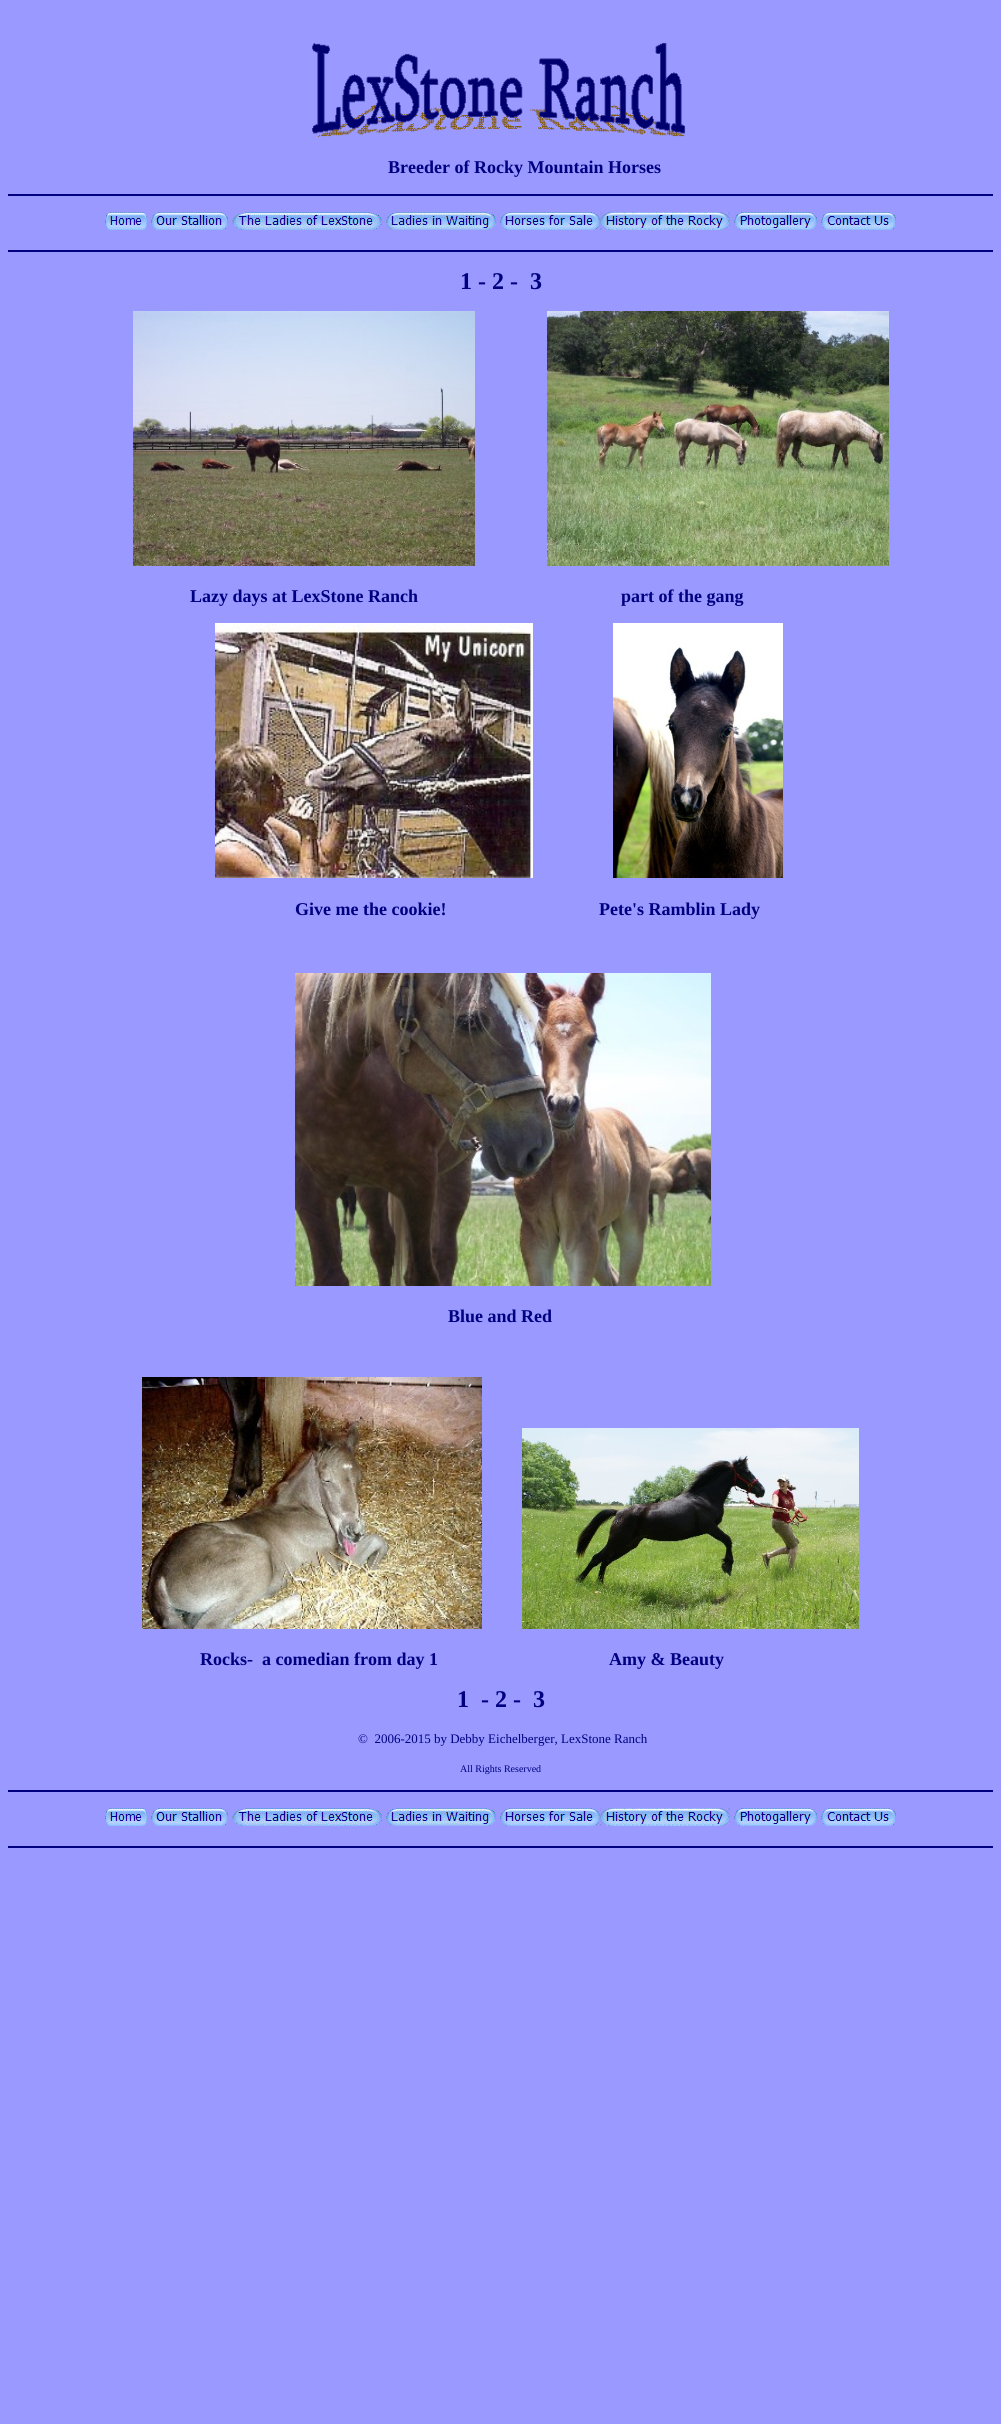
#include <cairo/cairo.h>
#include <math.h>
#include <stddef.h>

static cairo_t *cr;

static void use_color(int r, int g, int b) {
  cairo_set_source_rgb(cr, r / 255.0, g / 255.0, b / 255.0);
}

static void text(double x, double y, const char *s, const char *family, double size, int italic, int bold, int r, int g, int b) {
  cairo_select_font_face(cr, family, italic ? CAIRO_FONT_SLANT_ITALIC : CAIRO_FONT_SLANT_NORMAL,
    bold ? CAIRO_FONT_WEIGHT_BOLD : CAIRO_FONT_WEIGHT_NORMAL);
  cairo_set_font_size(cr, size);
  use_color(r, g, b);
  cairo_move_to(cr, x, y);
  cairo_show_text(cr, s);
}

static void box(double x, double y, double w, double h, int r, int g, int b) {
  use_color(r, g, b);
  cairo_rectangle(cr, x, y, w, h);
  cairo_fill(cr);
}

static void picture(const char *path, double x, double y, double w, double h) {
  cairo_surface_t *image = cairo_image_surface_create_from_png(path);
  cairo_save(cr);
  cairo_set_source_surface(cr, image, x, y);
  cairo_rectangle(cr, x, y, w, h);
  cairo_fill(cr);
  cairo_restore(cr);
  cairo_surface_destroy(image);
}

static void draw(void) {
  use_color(153, 153, 255);
  cairo_paint(cr);
  picture("img_01.png", 312, 43, 374, 94);
  box(8, 194, 985, 2, 0, 0, 128);
  picture("img_02.png", 105, 212, 42, 18);
  picture("img_03.png", 151, 212, 77, 18);
  picture("img_04.png", 232, 212, 150, 18);
  picture("img_05.png", 386, 212, 110, 18);
  picture("img_06.png", 500, 212, 100, 18);
  picture("img_07.png", 600, 212, 130, 18);
  picture("img_08.png", 734, 212, 83, 18);
  picture("img_09.png", 821, 212, 75, 18);
  box(8, 250, 985, 2, 0, 0, 128);
  picture("img_10.png", 133, 311, 342, 255);
  picture("img_11.png", 547, 311, 342, 255);
  picture("img_12.png", 215, 623, 318, 255);
  picture("img_13.png", 613, 623, 170, 255);
  picture("img_14.png", 295, 973, 416, 313);
  picture("img_15.png", 142, 1377, 340, 252);
  picture("img_16.png", 522, 1428, 337, 201);
  box(8, 1790, 985, 2, 0, 0, 128);
  picture("img_02.png", 105, 1808, 42, 18);
  picture("img_03.png", 151, 1808, 77, 18);
  picture("img_04.png", 232, 1808, 150, 18);
  picture("img_05.png", 386, 1808, 110, 18);
  picture("img_06.png", 500, 1808, 100, 18);
  picture("img_07.png", 600, 1808, 130, 18);
  picture("img_08.png", 734, 1808, 83, 18);
  picture("img_09.png", 821, 1808, 75, 18);
  box(8, 1846, 985, 2, 0, 0, 128);
  text(388, 173, "Breeder of Rocky Mountain Horses", "Liberation Serif", 18, 0, 1, 0, 0, 128);
  text(460, 289, "1 - 2 -", "Liberation Serif", 24, 0, 1, 0, 0, 128);
  text(530, 289, "3", "Liberation Serif", 24, 0, 1, 0, 0, 128);
  text(190, 602, "Lazy days at LexStone Ranch", "Liberation Serif", 18, 0, 1, 0, 0, 128);
  text(621, 602, "part of the gang", "Liberation Serif", 18, 0, 1, 0, 0, 128);
  text(295, 915, "Give me the cookie!", "Liberation Serif", 18, 0, 1, 0, 0, 128);
  text(599, 915, "Pete's Ramblin Lady", "Liberation Serif", 18, 0, 1, 0, 0, 128);
  text(448, 1322, "Blue and Red", "Liberation Serif", 18, 0, 1, 0, 0, 128);
  text(200, 1665, "Rocks-  a comedian from day 1", "Liberation Serif", 18, 0, 1, 0, 0, 128);
  text(609, 1665, "Amy & Beauty", "Liberation Serif", 18, 0, 1, 0, 0, 128);
  text(457, 1707, "1", "Liberation Serif", 24, 0, 1, 0, 0, 128);
  text(481, 1707, "- 2 -", "Liberation Serif", 24, 0, 1, 0, 0, 128);
  text(533, 1707, "3", "Liberation Serif", 24, 0, 1, 0, 0, 128);
  text(358, 1743, "©  2006-2015 by Debby Eichelberger, LexStone Ranch", "Liberation Serif", 13, 0, 0, 0, 0, 128);
  text(460, 1772, "All Rights Reserved", "Liberation Serif", 10, 0, 0, 0, 0, 128);
}

int main(void) {
  cairo_surface_t *surface = cairo_image_surface_create(CAIRO_FORMAT_RGB24, 1001, 2424);
  cr = cairo_create(surface);
  cairo_font_options_t *options = cairo_font_options_create();
  cairo_font_options_set_hint_metrics(options, CAIRO_HINT_METRICS_OFF);
  cairo_font_options_set_hint_style(options, CAIRO_HINT_STYLE_NONE);
  cairo_set_font_options(cr, options);
  cairo_set_miter_limit(cr, 4);
  draw();
  cairo_surface_write_to_png(surface, "out.png");
  cairo_font_options_destroy(options);
  cairo_destroy(cr);
  cairo_surface_destroy(surface);
  return 0;
}
